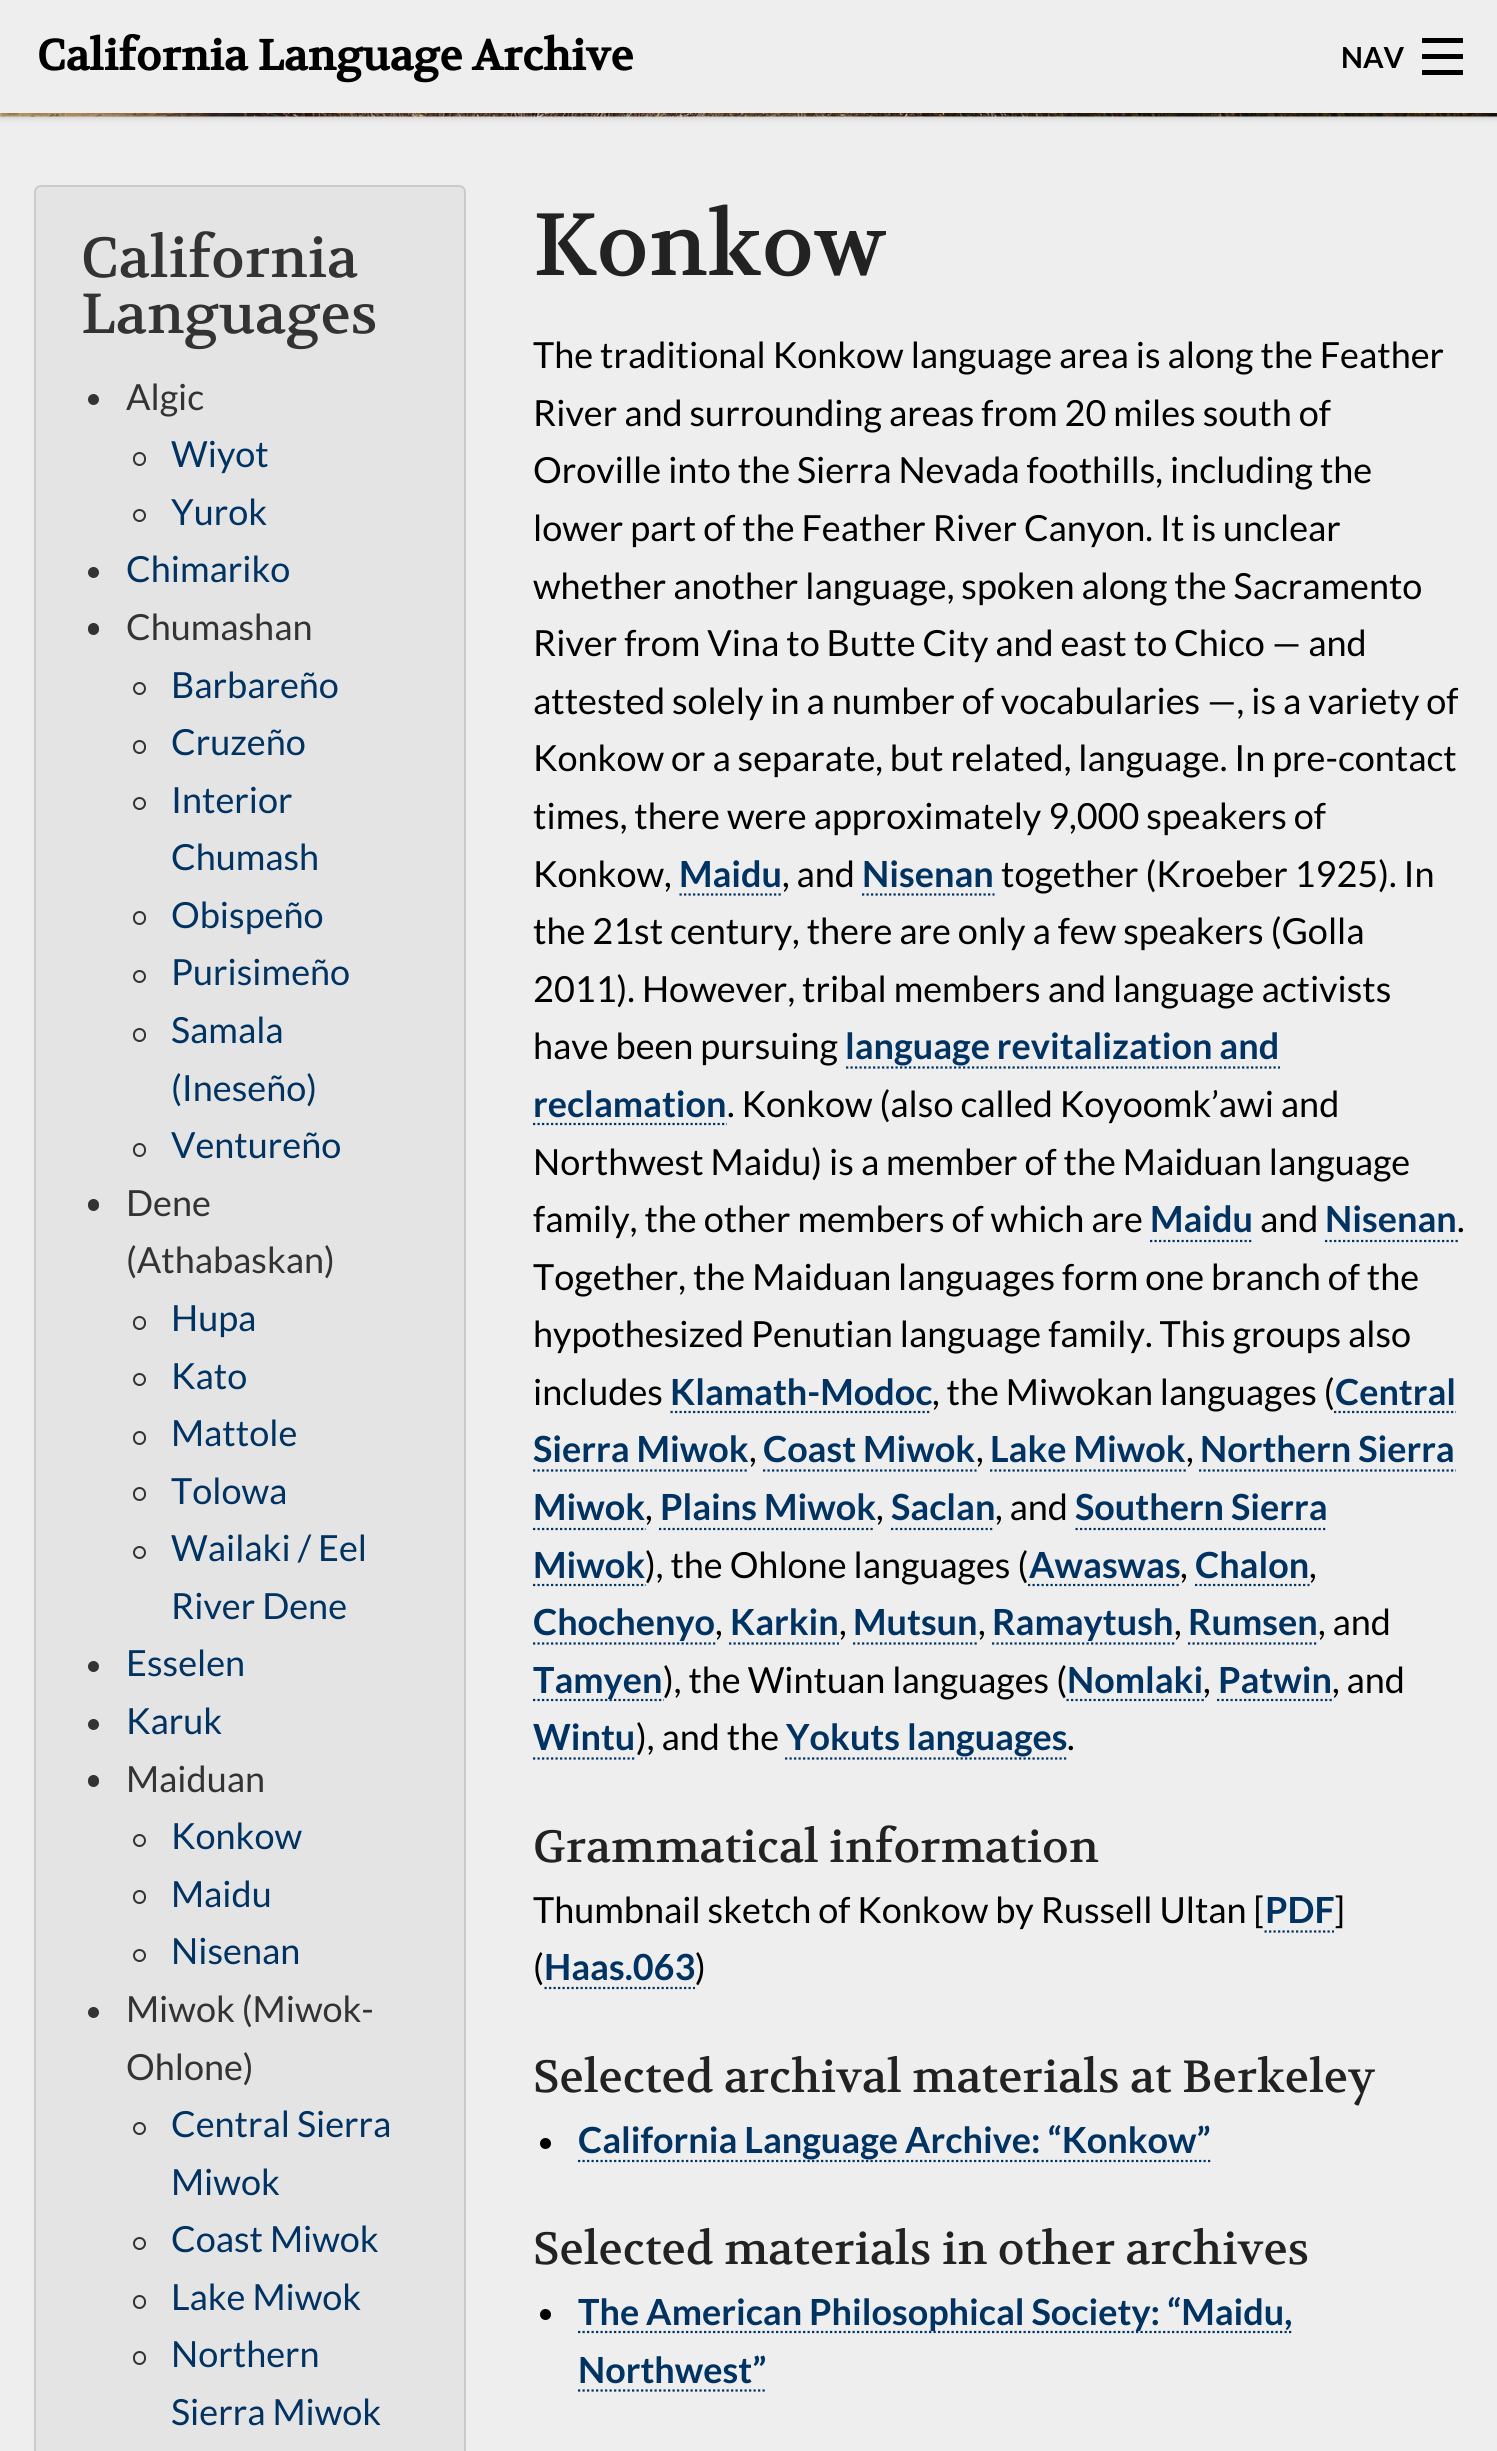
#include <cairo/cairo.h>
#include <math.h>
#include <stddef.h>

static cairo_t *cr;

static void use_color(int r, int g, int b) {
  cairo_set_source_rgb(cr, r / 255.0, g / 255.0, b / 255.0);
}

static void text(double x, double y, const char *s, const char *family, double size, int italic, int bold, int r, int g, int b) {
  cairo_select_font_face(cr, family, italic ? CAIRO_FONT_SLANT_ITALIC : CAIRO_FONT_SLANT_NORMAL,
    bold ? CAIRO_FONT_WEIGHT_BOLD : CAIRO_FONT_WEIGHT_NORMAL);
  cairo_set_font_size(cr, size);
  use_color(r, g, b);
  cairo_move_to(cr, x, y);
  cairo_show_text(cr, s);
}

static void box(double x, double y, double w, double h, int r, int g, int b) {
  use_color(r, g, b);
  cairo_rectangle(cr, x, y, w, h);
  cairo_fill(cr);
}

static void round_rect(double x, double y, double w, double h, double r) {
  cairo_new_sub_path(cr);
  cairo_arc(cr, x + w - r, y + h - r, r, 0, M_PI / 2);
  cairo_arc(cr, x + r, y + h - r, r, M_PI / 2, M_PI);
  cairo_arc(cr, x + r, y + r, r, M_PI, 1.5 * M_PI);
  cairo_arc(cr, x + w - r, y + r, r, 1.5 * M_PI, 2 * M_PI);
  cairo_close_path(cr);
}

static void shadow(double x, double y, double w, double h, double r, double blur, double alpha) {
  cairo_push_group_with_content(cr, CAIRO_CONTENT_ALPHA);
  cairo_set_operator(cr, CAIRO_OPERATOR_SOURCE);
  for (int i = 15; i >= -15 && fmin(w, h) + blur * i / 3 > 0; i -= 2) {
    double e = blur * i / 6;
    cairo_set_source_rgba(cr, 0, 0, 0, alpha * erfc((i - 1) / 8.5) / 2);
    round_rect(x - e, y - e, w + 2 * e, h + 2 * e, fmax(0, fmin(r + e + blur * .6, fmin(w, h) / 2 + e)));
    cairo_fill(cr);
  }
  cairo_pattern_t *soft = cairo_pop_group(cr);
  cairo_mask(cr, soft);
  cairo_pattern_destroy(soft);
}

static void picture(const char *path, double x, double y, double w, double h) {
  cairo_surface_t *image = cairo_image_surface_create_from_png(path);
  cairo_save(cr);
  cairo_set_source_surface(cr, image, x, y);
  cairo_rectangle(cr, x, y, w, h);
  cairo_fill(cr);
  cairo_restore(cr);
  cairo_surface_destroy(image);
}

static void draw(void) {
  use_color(238, 238, 238);
  cairo_paint(cr);
  picture("img_01.png", 0, 113, 1497, 4);
  use_color(0, 0, 0);
  shadow(0, 5, 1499, 112, 0, 3.5, 0.2);
  box(0, 0, 1497, 113, 238, 238, 238);
  box(1422, 70, 41, 5, 0, 0, 0);
  box(1422, 54, 41, 5, 0, 0, 0);
  box(1422, 38, 41, 5, 0, 0, 0);
  use_color(228, 228, 228);
  round_rect(35, 186, 430, 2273, 6);
  cairo_fill_preserve(cr);
  use_color(203, 203, 203);
  cairo_stroke(cr);
  use_color(51, 51, 51);
  cairo_arc(cr, 93.5, 399.5, 5.5, 0, 2 * M_PI);
  cairo_fill(cr);
  round_rect(134, 453, 11, 12, 5.5);
  cairo_stroke(cr);
  cairo_arc(cr, 139.5, 515.5, 5.5, 0, 2 * M_PI);
  cairo_stroke(cr);
  cairo_arc(cr, 93.5, 572.5, 5.5, 0, 2 * M_PI);
  cairo_fill(cr);
  round_rect(88, 623, 11, 12, 5.5);
  cairo_fill(cr);
  cairo_arc(cr, 139.5, 688.5, 5.5, 0, 2 * M_PI);
  cairo_stroke(cr);
  round_rect(134, 741, 11, 12, 5.5);
  cairo_stroke(cr);
  cairo_arc(cr, 139.5, 803.5, 5.5, 0, 2 * M_PI);
  cairo_stroke(cr);
  round_rect(134, 912, 11, 12, 5.5);
  cairo_stroke(cr);
  cairo_arc(cr, 139.5, 976.5, 5.5, 0, 2 * M_PI);
  cairo_stroke(cr);
  round_rect(134, 1029, 11, 12, 5.5);
  cairo_stroke(cr);
  round_rect(134, 1144, 11, 12, 5.5);
  cairo_stroke(cr);
  round_rect(88, 1199, 11, 12, 5.5);
  cairo_fill(cr);
  round_rect(134, 1317, 11, 12, 5.5);
  cairo_stroke(cr);
  cairo_arc(cr, 139.5, 1379.5, 5.5, 0, 2 * M_PI);
  cairo_stroke(cr);
  round_rect(134, 1432, 11, 12, 5.5);
  cairo_stroke(cr);
  round_rect(134, 1488, 11, 12, 5.5);
  cairo_stroke(cr);
  cairo_arc(cr, 139.5, 1552.5, 5.5, 0, 2 * M_PI);
  cairo_stroke(cr);
  cairo_arc(cr, 93.5, 1666.5, 5.5, 0, 2 * M_PI);
  cairo_fill(cr);
  cairo_arc(cr, 93.5, 1724.5, 5.5, 0, 2 * M_PI);
  cairo_fill(cr);
  round_rect(88, 1775, 11, 12, 5.5);
  cairo_fill(cr);
  cairo_arc(cr, 139.5, 1840.5, 5.5, 0, 2 * M_PI);
  cairo_stroke(cr);
  round_rect(134, 1891, 11, 12, 5.5);
  cairo_stroke(cr);
  cairo_arc(cr, 139.5, 1955.5, 5.5, 0, 2 * M_PI);
  cairo_stroke(cr);
  cairo_arc(cr, 93.5, 2012.5, 5.5, 0, 2 * M_PI);
  cairo_fill(cr);
  cairo_arc(cr, 139.5, 2128.5, 5.5, 0, 2 * M_PI);
  cairo_stroke(cr);
  cairo_arc(cr, 139.5, 2243.5, 5.5, 0, 2 * M_PI);
  cairo_stroke(cr);
  round_rect(134, 2296, 11, 12, 5.5);
  cairo_stroke(cr);
  round_rect(134, 2352, 11, 12, 5.5);
  cairo_stroke(cr);
  cairo_new_path(cr);
  cairo_move_to(cr, 679.5, 894.5);
  cairo_line_to(cr, 783, 894.5);
  use_color(0, 50, 98);
  cairo_set_line_width(cr, 2.2);
  cairo_set_dash(cr, (double[]){2.25, 2.25}, 2, 0);
  cairo_stroke(cr);
  cairo_new_path(cr);
  cairo_move_to(cr, 862, 894.5);
  cairo_line_to(cr, 994.5, 894.5);
  cairo_stroke(cr);
  cairo_new_path(cr);
  cairo_move_to(cr, 846, 1067.5);
  cairo_line_to(cr, 1280, 1067.5);
  cairo_stroke(cr);
  cairo_new_path(cr);
  cairo_move_to(cr, 533, 1124);
  cairo_line_to(cr, 727, 1124);
  cairo_stroke(cr);
  cairo_new_path(cr);
  cairo_move_to(cr, 1150, 1241);
  cairo_line_to(cr, 1253, 1241);
  cairo_stroke(cr);
  cairo_new_path(cr);
  cairo_move_to(cr, 1325, 1241);
  cairo_line_to(cr, 1458, 1241);
  cairo_stroke(cr);
  cairo_new_path(cr);
  cairo_move_to(cr, 670.5, 1412);
  cairo_line_to(cr, 931.5, 1412);
  cairo_stroke(cr);
  cairo_new_path(cr);
  cairo_move_to(cr, 1334, 1412);
  cairo_line_to(cr, 1456, 1412);
  cairo_stroke(cr);
  cairo_new_path(cr);
  cairo_move_to(cr, 533, 1470.5);
  cairo_line_to(cr, 749, 1470.5);
  cairo_stroke(cr);
  cairo_new_path(cr);
  cairo_move_to(cr, 763, 1470.5);
  cairo_line_to(cr, 976.5, 1470.5);
  cairo_stroke(cr);
  cairo_new_path(cr);
  cairo_move_to(cr, 990, 1470.5);
  cairo_line_to(cr, 1186, 1470.5);
  cairo_stroke(cr);
  cairo_new_path(cr);
  cairo_move_to(cr, 1199, 1470.5);
  cairo_line_to(cr, 1456, 1470.5);
  cairo_stroke(cr);
  cairo_new_path(cr);
  cairo_move_to(cr, 533, 1529);
  cairo_line_to(cr, 646, 1529);
  cairo_stroke(cr);
  cairo_new_path(cr);
  cairo_move_to(cr, 659, 1529);
  cairo_line_to(cr, 875, 1529);
  cairo_stroke(cr);
  cairo_new_path(cr);
  cairo_move_to(cr, 891, 1529);
  cairo_line_to(cr, 994.5, 1529);
  cairo_stroke(cr);
  cairo_new_path(cr);
  cairo_move_to(cr, 1075.5, 1529);
  cairo_line_to(cr, 1327.5, 1529);
  cairo_stroke(cr);
  cairo_new_path(cr);
  cairo_move_to(cr, 533, 1585);
  cairo_line_to(cr, 646, 1585);
  cairo_stroke(cr);
  cairo_new_path(cr);
  cairo_move_to(cr, 1028, 1585);
  cairo_line_to(cr, 1181, 1585);
  cairo_stroke(cr);
  cairo_new_path(cr);
  cairo_move_to(cr, 1195, 1585);
  cairo_line_to(cr, 1309.5, 1585);
  cairo_stroke(cr);
  cairo_new_path(cr);
  cairo_move_to(cr, 533, 1643.5);
  cairo_line_to(cr, 715.5, 1643.5);
  cairo_stroke(cr);
  cairo_new_path(cr);
  cairo_move_to(cr, 729, 1643.5);
  cairo_line_to(cr, 839, 1643.5);
  cairo_stroke(cr);
  cairo_new_path(cr);
  cairo_move_to(cr, 853, 1643.5);
  cairo_line_to(cr, 979, 1643.5);
  cairo_stroke(cr);
  cairo_new_path(cr);
  cairo_move_to(cr, 992, 1643.5);
  cairo_line_to(cr, 1174.5, 1643.5);
  cairo_stroke(cr);
  cairo_new_path(cr);
  cairo_move_to(cr, 1188, 1643.5);
  cairo_line_to(cr, 1318.5, 1643.5);
  cairo_stroke(cr);
  cairo_new_path(cr);
  cairo_move_to(cr, 533, 1700);
  cairo_line_to(cr, 664, 1700);
  cairo_stroke(cr);
  cairo_new_path(cr);
  cairo_move_to(cr, 1066.5, 1700);
  cairo_line_to(cr, 1204, 1700);
  cairo_stroke(cr);
  cairo_new_path(cr);
  cairo_move_to(cr, 1217, 1700);
  cairo_line_to(cr, 1332, 1700);
  cairo_stroke(cr);
  cairo_new_path(cr);
  cairo_move_to(cr, 533, 1758.5);
  cairo_line_to(cr, 634.5, 1758.5);
  cairo_stroke(cr);
  cairo_new_path(cr);
  cairo_move_to(cr, 785, 1758.5);
  cairo_line_to(cr, 1066.5, 1758.5);
  cairo_stroke(cr);
  cairo_new_path(cr);
  cairo_move_to(cr, 1264.5, 1931.5);
  cairo_line_to(cr, 1334, 1931.5);
  cairo_stroke(cr);
  cairo_new_path(cr);
  cairo_move_to(cr, 544.5, 1988);
  cairo_line_to(cr, 695, 1988);
  cairo_stroke(cr);
  use_color(0, 0, 0);
  cairo_arc(cr, 545.5, 2143.5, 5.5, 0, 2 * M_PI);
  cairo_fill(cr);
  cairo_new_path(cr);
  cairo_move_to(cr, 578, 2161);
  cairo_line_to(cr, 1210.5, 2161);
  use_color(0, 50, 98);
  cairo_stroke(cr);
  use_color(0, 0, 0);
  cairo_arc(cr, 545.5, 2314.5, 5.5, 0, 2 * M_PI);
  cairo_fill(cr);
  cairo_new_path(cr);
  cairo_move_to(cr, 578, 2332);
  cairo_line_to(cr, 1291.5, 2332);
  use_color(0, 50, 98);
  cairo_stroke(cr);
  cairo_new_path(cr);
  cairo_move_to(cr, 578, 2390.5);
  cairo_line_to(cr, 767, 2390.5);
  cairo_stroke(cr);
  text(37, 70, "California Language Archive", "Volkhov", 42.75, 0, 1, 0, 0, 0);
  text(1341, 68, "NAV", "Lato", 29, 0, 1, 0, 0, 0);
  text(81, 277, "California", "Volkhov", 56.25, 0, 0, 51, 51, 51);
  text(81, 333, "Languages", "Volkhov", 56.25, 0, 0, 51, 51, 51);
  text(126, 410, "Algic", "Lato", 36, 0, 0, 51, 51, 51);
  text(171, 467, "Wiyot", "Lato", 36, 0, 0, 0, 50, 98);
  text(171, 525, "Yurok", "Lato", 36, 0, 0, 0, 50, 98);
  text(126, 582, "Chimariko", "Lato", 36, 0, 0, 0, 50, 98);
  text(126, 640, "Chumashan", "Lato", 36, 0, 0, 51, 51, 51);
  text(171, 698, "Barbareño", "Lato", 36, 0, 0, 0, 50, 98);
  text(171, 755, "Cruzeño", "Lato", 36, 0, 0, 0, 50, 98);
  text(171, 813, "Interior", "Lato", 36, 0, 0, 0, 50, 98);
  text(171, 870, "Chumash", "Lato", 36, 0, 0, 0, 50, 98);
  text(171, 928, "Obispeño", "Lato", 36, 0, 0, 0, 50, 98);
  text(171, 985, "Purisimeño", "Lato", 36, 0, 0, 0, 50, 98);
  text(171, 1043, "Samala", "Lato", 36, 0, 0, 0, 50, 98);
  text(171, 1101, "(Ineseño)", "Lato", 36, 0, 0, 0, 50, 98);
  text(171, 1158, "Ventureño", "Lato", 36, 0, 0, 0, 50, 98);
  text(126, 1216, "Dene", "Lato", 36, 0, 0, 51, 51, 51);
  text(126, 1273, "(Athabaskan)", "Lato", 36, 0, 0, 51, 51, 51);
  text(171, 1331, "Hupa", "Lato", 36, 0, 0, 0, 50, 98);
  text(171, 1389, "Kato", "Lato", 36, 0, 0, 0, 50, 98);
  text(171, 1446, "Mattole", "Lato", 36, 0, 0, 0, 50, 98);
  text(171, 1504, "Tolowa", "Lato", 36, 0, 0, 0, 50, 98);
  text(171, 1561, "Wailaki / Eel", "Lato", 36, 0, 0, 0, 50, 98);
  text(171, 1619, "River Dene", "Lato", 36, 0, 0, 0, 50, 98);
  text(126, 1676, "Esselen", "Lato", 36, 0, 0, 0, 50, 98);
  text(126, 1734, "Karuk", "Lato", 36, 0, 0, 0, 50, 98);
  text(126, 1792, "Maiduan", "Lato", 36, 0, 0, 51, 51, 51);
  text(171, 1849, "Konkow", "Lato", 36, 0, 0, 0, 50, 98);
  text(171, 1907, "Maidu", "Lato", 36, 0, 0, 0, 50, 98);
  text(171, 1964, "Nisenan", "Lato", 36, 0, 0, 0, 50, 98);
  text(126, 2022, "Miwok (Miwok-", "Lato", 36, 0, 0, 51, 51, 51);
  text(126, 2080, "Ohlone)", "Lato", 36, 0, 0, 51, 51, 51);
  text(171, 2137, "Central Sierra", "Lato", 36, 0, 0, 0, 50, 98);
  text(171, 2195, "Miwok", "Lato", 36, 0, 0, 0, 50, 98);
  text(171, 2252, "Coast Miwok", "Lato", 36, 0, 0, 0, 50, 98);
  text(171, 2310, "Lake Miwok", "Lato", 36, 0, 0, 0, 50, 98);
  text(171, 2367, "Northern", "Lato", 36, 0, 0, 0, 50, 98);
  text(171, 2425, "Sierra Miwok", "Lato", 36, 0, 0, 0, 50, 98);
  text(533, 275, "Konkow", "Volkhov", 88, 0, 0, 34, 34, 34);
  text(533, 368, "The traditional Konkow language area is along the Feather", "Lato", 36, 0, 0, 0, 0, 0);
  text(533, 426, "River and surrounding areas from 20 miles south of", "Lato", 36, 0, 0, 0, 0, 0);
  text(533, 483, "Oroville into the Sierra Nevada foothills, including the", "Lato", 36, 0, 0, 0, 0, 0);
  text(533, 541, "lower part of the Feather River Canyon. It is unclear", "Lato", 36, 0, 0, 0, 0, 0);
  text(533, 599, "whether another language, spoken along the Sacramento", "Lato", 36, 0, 0, 0, 0, 0);
  text(533, 656, "River from Vina to Butte City and east to Chico — and", "Lato", 36, 0, 0, 0, 0, 0);
  text(533, 714, "attested solely in a number of vocabularies —, is a variety of", "Lato", 36, 0, 0, 0, 0, 0);
  text(533, 771, "Konkow or a separate, but related, language. In pre-contact", "Lato", 36, 0, 0, 0, 0, 0);
  text(533, 829, "times, there were approximately 9,000 speakers of", "Lato", 36, 0, 0, 0, 0, 0);
  text(533, 887, "Konkow,", "Lato", 36, 0, 0, 0, 0, 0);
  text(679, 887, "Maidu", "Lato", 36, 0, 1, 0, 50, 98);
  text(782, 887, ", and", "Lato", 36, 0, 0, 0, 0, 0);
  text(862, 887, "Nisenan", "Lato", 36, 0, 1, 0, 50, 98);
  text(1001, 887, "together (Kroeber 1925). In", "Lato", 36, 0, 0, 0, 0, 0);
  text(533, 944, "the 21st century, there are only a few speakers (Golla", "Lato", 36, 0, 0, 0, 0, 0);
  text(533, 1002, "2011). However, tribal members and language activists", "Lato", 36, 0, 0, 0, 0, 0);
  text(533, 1059, "have been pursuing", "Lato", 36, 0, 0, 0, 0, 0);
  text(845, 1059, "language revitalization and", "Lato", 36, 0, 1, 0, 50, 98);
  text(533, 1117, "reclamation", "Lato", 36, 0, 1, 0, 50, 98);
  text(727, 1117, ". Konkow (also called Koyoomk’awi and", "Lato", 36, 0, 0, 0, 0, 0);
  text(533, 1175, "Northwest Maidu) is a member of the Maiduan language", "Lato", 36, 0, 0, 0, 0, 0);
  text(533, 1232, "family, the other members of which are", "Lato", 36, 0, 0, 0, 0, 0);
  text(1150, 1232, "Maidu", "Lato", 36, 0, 1, 0, 50, 98);
  text(1260, 1232, "and", "Lato", 36, 0, 0, 0, 0, 0);
  text(1325, 1232, "Nisenan", "Lato", 36, 0, 1, 0, 50, 98);
  text(1457, 1232, ".", "Lato", 36, 0, 0, 0, 0, 0);
  text(533, 1290, "Together, the Maiduan languages form one branch of the", "Lato", 36, 0, 0, 0, 0, 0);
  text(533, 1347, "hypothesized Penutian language family. This groups also", "Lato", 36, 0, 0, 0, 0, 0);
  text(533, 1405, "includes", "Lato", 36, 0, 0, 0, 0, 0);
  text(670, 1405, "Klamath-Modoc", "Lato", 36, 0, 1, 0, 50, 98);
  text(932, 1405, ", the Miwokan languages (", "Lato", 36, 0, 0, 0, 0, 0);
  text(1335, 1405, "Central", "Lato", 36, 0, 1, 0, 50, 98);
  text(533, 1462, "Sierra Miwok", "Lato", 36, 0, 1, 0, 50, 98);
  text(749, 1462, ",", "Lato", 36, 0, 0, 0, 0, 0);
  text(763, 1462, "Coast Miwok", "Lato", 36, 0, 1, 0, 50, 98);
  text(976, 1462, ",", "Lato", 36, 0, 0, 0, 0, 0);
  text(990, 1462, "Lake Miwok", "Lato", 36, 0, 1, 0, 50, 98);
  text(1186, 1462, ",", "Lato", 36, 0, 0, 0, 0, 0);
  text(1200, 1462, "Northern Sierra", "Lato", 36, 0, 1, 0, 50, 98);
  text(533, 1520, "Miwok", "Lato", 36, 0, 1, 0, 50, 98);
  text(645, 1520, ",", "Lato", 36, 0, 0, 0, 0, 0);
  text(660, 1520, "Plains Miwok", "Lato", 36, 0, 1, 0, 50, 98);
  text(876, 1520, ",", "Lato", 36, 0, 0, 0, 0, 0);
  text(891, 1520, "Saclan", "Lato", 36, 0, 1, 0, 50, 98);
  text(995, 1520, ", and", "Lato", 36, 0, 0, 0, 0, 0);
  text(1075, 1520, "Southern Sierra", "Lato", 36, 0, 1, 0, 50, 98);
  text(533, 1578, "Miwok", "Lato", 36, 0, 1, 0, 50, 98);
  text(645, 1578, "), the Ohlone languages (", "Lato", 36, 0, 0, 0, 0, 0);
  text(1029, 1578, "Awaswas", "Lato", 36, 0, 1, 0, 50, 98);
  text(1180, 1578, ",", "Lato", 36, 0, 0, 0, 0, 0);
  text(1195, 1578, "Chalon", "Lato", 36, 0, 1, 0, 50, 98);
  text(1309, 1578, ",", "Lato", 36, 0, 0, 0, 0, 0);
  text(533, 1635, "Chochenyo", "Lato", 36, 0, 1, 0, 50, 98);
  text(715, 1635, ",", "Lato", 36, 0, 0, 0, 0, 0);
  text(730, 1635, "Karkin", "Lato", 36, 0, 1, 0, 50, 98);
  text(839, 1635, ",", "Lato", 36, 0, 0, 0, 0, 0);
  text(853, 1635, "Mutsun", "Lato", 36, 0, 1, 0, 50, 98);
  text(978, 1635, ",", "Lato", 36, 0, 0, 0, 0, 0);
  text(992, 1635, "Ramaytush", "Lato", 36, 0, 1, 0, 50, 98);
  text(1174, 1635, ",", "Lato", 36, 0, 0, 0, 0, 0);
  text(1188, 1635, "Rumsen", "Lato", 36, 0, 1, 0, 50, 98);
  text(1318, 1635, ", and", "Lato", 36, 0, 0, 0, 0, 0);
  text(533, 1693, "Tamyen", "Lato", 36, 0, 1, 0, 50, 98);
  text(663, 1693, "), the Wintuan languages (", "Lato", 36, 0, 0, 0, 0, 0);
  text(1067, 1693, "Nomlaki", "Lato", 36, 0, 1, 0, 50, 98);
  text(1203, 1693, ",", "Lato", 36, 0, 0, 0, 0, 0);
  text(1218, 1693, "Patwin", "Lato", 36, 0, 1, 0, 50, 98);
  text(1332, 1693, ", and", "Lato", 36, 0, 0, 0, 0, 0);
  text(533, 1750, "Wintu", "Lato", 36, 0, 1, 0, 50, 98);
  text(636, 1750, "), and the", "Lato", 36, 0, 0, 0, 0, 0);
  text(786, 1750, "Yokuts languages", "Lato", 36, 0, 1, 0, 50, 98);
  text(1067, 1750, ".", "Lato", 36, 0, 0, 0, 0, 0);
  text(533, 1862, "Grammatical information", "Volkhov", 45, 0, 0, 34, 34, 34);
  text(533, 1923, "Thumbnail sketch of Konkow by Russell Ultan [", "Lato", 36, 0, 0, 0, 0, 0);
  text(1265, 1923, "PDF", "Lato", 36, 0, 1, 0, 50, 98);
  text(1334, 1923, "]", "Lato", 36, 0, 0, 0, 0, 0);
  text(533, 1980, "(", "Lato", 36, 0, 0, 0, 0, 0);
  text(544, 1980, "Haas.063", "Lato", 36, 0, 1, 0, 50, 98);
  text(695, 1980, ")", "Lato", 36, 0, 0, 0, 0, 0);
  text(533, 2092, "Selected archival materials at Berkeley", "Volkhov", 45, 0, 0, 34, 34, 34);
  text(578, 2153, "California Language Archive: “Konkow”", "Lato", 36, 0, 1, 0, 50, 98);
  text(533, 2264, "Selected materials in other archives", "Volkhov", 45, 0, 0, 34, 34, 34);
  text(578, 2325, "The American Philosophical Society: “Maidu,", "Lato", 36, 0, 1, 0, 50, 98);
  text(578, 2383, "Northwest”", "Lato", 36, 0, 1, 0, 50, 98);
}

int main(void) {
  cairo_surface_t *surface = cairo_image_surface_create(CAIRO_FORMAT_RGB24, 1497, 2451);
  cr = cairo_create(surface);
  cairo_font_options_t *options = cairo_font_options_create();
  cairo_font_options_set_hint_metrics(options, CAIRO_HINT_METRICS_OFF);
  cairo_font_options_set_hint_style(options, CAIRO_HINT_STYLE_NONE);
  cairo_set_font_options(cr, options);
  cairo_set_miter_limit(cr, 4);
  draw();
  cairo_surface_write_to_png(surface, "out.png");
  cairo_font_options_destroy(options);
  cairo_destroy(cr);
  cairo_surface_destroy(surface);
  return 0;
}
